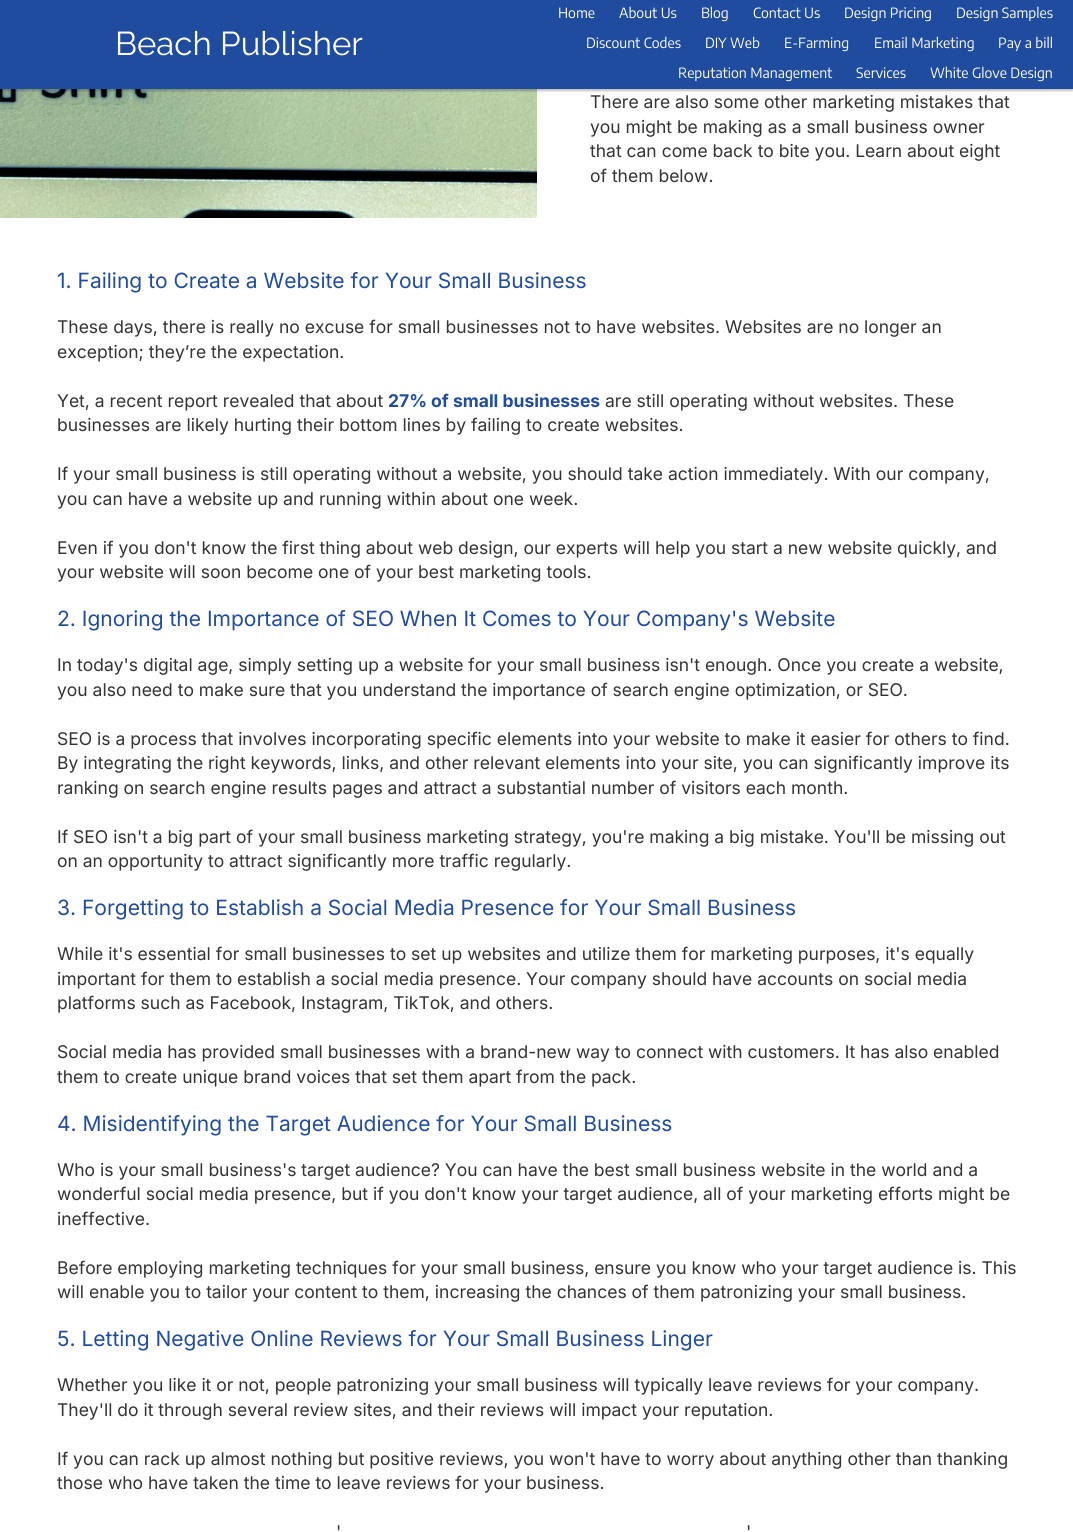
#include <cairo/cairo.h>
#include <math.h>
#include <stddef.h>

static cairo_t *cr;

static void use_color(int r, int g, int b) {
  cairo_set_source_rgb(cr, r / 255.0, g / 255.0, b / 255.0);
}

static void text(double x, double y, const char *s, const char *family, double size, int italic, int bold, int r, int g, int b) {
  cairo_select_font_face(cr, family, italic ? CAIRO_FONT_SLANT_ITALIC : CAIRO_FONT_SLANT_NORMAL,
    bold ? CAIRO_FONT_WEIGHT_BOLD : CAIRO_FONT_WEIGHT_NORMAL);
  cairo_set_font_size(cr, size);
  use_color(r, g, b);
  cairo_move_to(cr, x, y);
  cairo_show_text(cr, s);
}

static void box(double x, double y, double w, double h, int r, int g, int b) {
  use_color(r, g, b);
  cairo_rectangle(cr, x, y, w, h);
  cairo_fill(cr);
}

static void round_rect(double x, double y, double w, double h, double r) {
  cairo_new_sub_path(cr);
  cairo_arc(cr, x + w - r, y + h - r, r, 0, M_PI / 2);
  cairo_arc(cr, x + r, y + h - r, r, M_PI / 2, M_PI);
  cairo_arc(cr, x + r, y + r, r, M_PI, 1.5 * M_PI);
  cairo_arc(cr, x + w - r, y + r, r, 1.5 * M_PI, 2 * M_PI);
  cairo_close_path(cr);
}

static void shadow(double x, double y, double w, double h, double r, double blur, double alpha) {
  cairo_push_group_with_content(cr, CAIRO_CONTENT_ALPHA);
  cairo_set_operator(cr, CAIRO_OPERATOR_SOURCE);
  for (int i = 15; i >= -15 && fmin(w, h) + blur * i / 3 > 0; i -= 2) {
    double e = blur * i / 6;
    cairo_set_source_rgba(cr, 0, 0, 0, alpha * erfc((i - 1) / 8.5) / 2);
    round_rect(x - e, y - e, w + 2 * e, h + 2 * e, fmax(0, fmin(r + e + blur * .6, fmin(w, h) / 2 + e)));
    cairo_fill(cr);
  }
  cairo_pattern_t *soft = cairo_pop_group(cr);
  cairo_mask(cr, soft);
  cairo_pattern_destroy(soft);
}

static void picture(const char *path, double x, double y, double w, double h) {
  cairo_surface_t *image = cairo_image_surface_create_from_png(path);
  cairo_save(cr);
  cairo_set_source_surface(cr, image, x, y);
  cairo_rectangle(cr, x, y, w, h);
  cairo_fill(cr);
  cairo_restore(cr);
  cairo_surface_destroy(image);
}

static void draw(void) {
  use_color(255, 255, 255);
  cairo_paint(cr);
  picture("img_01.png", 0, 89, 537, 129);
  use_color(0, 0, 0);
  shadow(0, 1, 1073, 90, 0, 1, 0.25);
  box(0, 0, 1073, 89, 32, 76, 159);
  text(115, 55, "Beach Publisher", "Raleway", 33, 0, 0, 255, 255, 255);
  text(558, 18, "Home", "Encode Sans Condensed", 14, 0, 0, 255, 255, 255);
  text(619, 18, "About Us", "Encode Sans Condensed", 14, 0, 0, 255, 255, 255);
  text(701, 18, "Blog", "Encode Sans Condensed", 14, 0, 0, 255, 255, 255);
  text(753, 18, "Contact Us", "Encode Sans Condensed", 14, 0, 0, 255, 255, 255);
  text(844, 18, "Design Pricing", "Encode Sans Condensed", 14, 0, 0, 255, 255, 255);
  text(956, 18, "Design Samples", "Encode Sans Condensed", 14, 0, 0, 255, 255, 255);
  text(586, 48, "Discount Codes", "Encode Sans Condensed", 14, 0, 0, 255, 255, 255);
  text(705, 48, "DIY Web", "Encode Sans Condensed", 14, 0, 0, 255, 255, 255);
  text(784, 48, "E-Farming", "Encode Sans Condensed", 14, 0, 0, 255, 255, 255);
  text(874, 48, "Email Marketing", "Encode Sans Condensed", 14, 0, 0, 255, 255, 255);
  text(998, 48, "Pay a bill", "Encode Sans Condensed", 14, 0, 0, 255, 255, 255);
  text(678, 78, "Reputation Management", "Encode Sans Condensed", 14, 0, 0, 255, 255, 255);
  text(856, 78, "Services", "Encode Sans Condensed", 14, 0, 0, 255, 255, 255);
  text(930, 78, "White Glove Design", "Encode Sans Condensed", 14, 0, 0, 255, 255, 255);
  text(590, 108, "There are also some other marketing mistakes that", "Inter", 17.5, 0, 0, 51, 51, 51);
  text(590, 133, "you might be making as a small business owner", "Inter", 17.5, 0, 0, 51, 51, 51);
  text(590, 157, "that can come back to bite you. Learn about eight", "Inter", 17.5, 0, 0, 51, 51, 51);
  text(590, 182, "of them below.", "Inter", 17.5, 0, 0, 51, 51, 51);
  text(57, 288, "1. Failing to Create a Website for Your Small Business", "Inter", 21, 0, 0, 32, 76, 159);
  text(57, 333, "These days, there is really no excuse for small businesses not to have websites. Websites are no longer an", "Inter", 17.5, 0, 0, 51, 51, 51);
  text(57, 358, "exception; they’re the expectation.", "Inter", 17.5, 0, 0, 51, 51, 51);
  text(57, 407, "Yet, a recent report revealed that about", "Inter", 17.5, 0, 0, 51, 51, 51);
  text(388, 407, "27% of small businesses", "Inter", 17.5, 0, 1, 32, 76, 159);
  text(605, 407, "are still operating without websites. These", "Inter", 17.5, 0, 0, 51, 51, 51);
  text(57, 431, "businesses are likely hurting their bottom lines by failing to create websites.", "Inter", 17.5, 0, 0, 51, 51, 51);
  text(57, 480, "If your small business is still operating without a website, you should take action immediately. With our company,", "Inter", 17.5, 0, 0, 51, 51, 51);
  text(57, 505, "you can have a website up and running within about one week.", "Inter", 17.5, 0, 0, 51, 51, 51);
  text(57, 554, "Even if you don't know the first thing about web design, our experts will help you start a new website quickly, and", "Inter", 17.5, 0, 0, 51, 51, 51);
  text(57, 578, "your website will soon become one of your best marketing tools.", "Inter", 17.5, 0, 0, 51, 51, 51);
  text(57, 626, "2. Ignoring the Importance of SEO When It Comes to Your Company's Website", "Inter", 21, 0, 0, 32, 76, 159);
  text(57, 671, "In today's digital age, simply setting up a website for your small business isn't enough. Once you create a website,", "Inter", 17.5, 0, 0, 51, 51, 51);
  text(57, 696, "you also need to make sure that you understand the importance of search engine optimization, or SEO.", "Inter", 17.5, 0, 0, 51, 51, 51);
  text(57, 745, "SEO is a process that involves incorporating specific elements into your website to make it easier for others to find.", "Inter", 17.5, 0, 0, 51, 51, 51);
  text(57, 769, "By integrating the right keywords, links, and other relevant elements into your site, you can significantly improve its", "Inter", 17.5, 0, 0, 51, 51, 51);
  text(57, 794, "ranking on search engine results pages and attract a substantial number of visitors each month.", "Inter", 17.5, 0, 0, 51, 51, 51);
  text(57, 843, "If SEO isn't a big part of your small business marketing strategy, you're making a big mistake. You'll be missing out", "Inter", 17.5, 0, 0, 51, 51, 51);
  text(57, 867, "on an opportunity to attract significantly more traffic regularly.", "Inter", 17.5, 0, 0, 51, 51, 51);
  text(57, 915, "3. Forgetting to Establish a Social Media Presence for Your Small Business", "Inter", 21, 0, 0, 32, 76, 159);
  text(57, 960, "While it's essential for small businesses to set up websites and utilize them for marketing purposes, it's equally", "Inter", 17.5, 0, 0, 51, 51, 51);
  text(57, 985, "important for them to establish a social media presence. Your company should have accounts on social media", "Inter", 17.5, 0, 0, 51, 51, 51);
  text(57, 1009, "platforms such as Facebook, Instagram, TikTok, and others.", "Inter", 17.5, 0, 0, 51, 51, 51);
  text(57, 1058, "Social media has provided small businesses with a brand-new way to connect with customers. It has also enabled", "Inter", 17.5, 0, 0, 51, 51, 51);
  text(57, 1083, "them to create unique brand voices that set them apart from the pack.", "Inter", 17.5, 0, 0, 51, 51, 51);
  text(57, 1131, "4. Misidentifying the Target Audience for Your Small Business", "Inter", 21, 0, 0, 32, 76, 159);
  text(57, 1176, "Who is your small business's target audience? You can have the best small business website in the world and a", "Inter", 17.5, 0, 0, 51, 51, 51);
  text(57, 1200, "wonderful social media presence, but if you don't know your target audience, all of your marketing efforts might be", "Inter", 17.5, 0, 0, 51, 51, 51);
  text(57, 1225, "ineffective.", "Inter", 17.5, 0, 0, 51, 51, 51);
  text(57, 1274, "Before employing marketing techniques for your small business, ensure you know who your target audience is. This", "Inter", 17.5, 0, 0, 51, 51, 51);
  text(57, 1298, "will enable you to tailor your content to them, increasing the chances of them patronizing your small business.", "Inter", 17.5, 0, 0, 51, 51, 51);
  text(57, 1346, "5. Letting Negative Online Reviews for Your Small Business Linger", "Inter", 21, 0, 0, 32, 76, 159);
  text(57, 1391, "Whether you like it or not, people patronizing your small business will typically leave reviews for your company.", "Inter", 17.5, 0, 0, 51, 51, 51);
  text(57, 1416, "They'll do it through several review sites, and their reviews will impact your reputation.", "Inter", 17.5, 0, 0, 51, 51, 51);
  text(57, 1465, "If you can rack up almost nothing but positive reviews, you won't have to worry about anything other than thanking", "Inter", 17.5, 0, 0, 51, 51, 51);
  text(57, 1489, "those who have taken the time to leave reviews for your business.", "Inter", 17.5, 0, 0, 51, 51, 51);
  text(336, 1538, "'", "Inter", 17.5, 0, 0, 51, 51, 51);
  text(746, 1538, "'", "Inter", 17.5, 0, 0, 51, 51, 51);
}

int main(void) {
  cairo_surface_t *surface = cairo_image_surface_create(CAIRO_FORMAT_RGB24, 1073, 1532);
  cr = cairo_create(surface);
  cairo_font_options_t *options = cairo_font_options_create();
  cairo_font_options_set_hint_metrics(options, CAIRO_HINT_METRICS_OFF);
  cairo_font_options_set_hint_style(options, CAIRO_HINT_STYLE_NONE);
  cairo_set_font_options(cr, options);
  cairo_set_miter_limit(cr, 4);
  draw();
  cairo_surface_write_to_png(surface, "out.png");
  cairo_font_options_destroy(options);
  cairo_destroy(cr);
  cairo_surface_destroy(surface);
  return 0;
}
